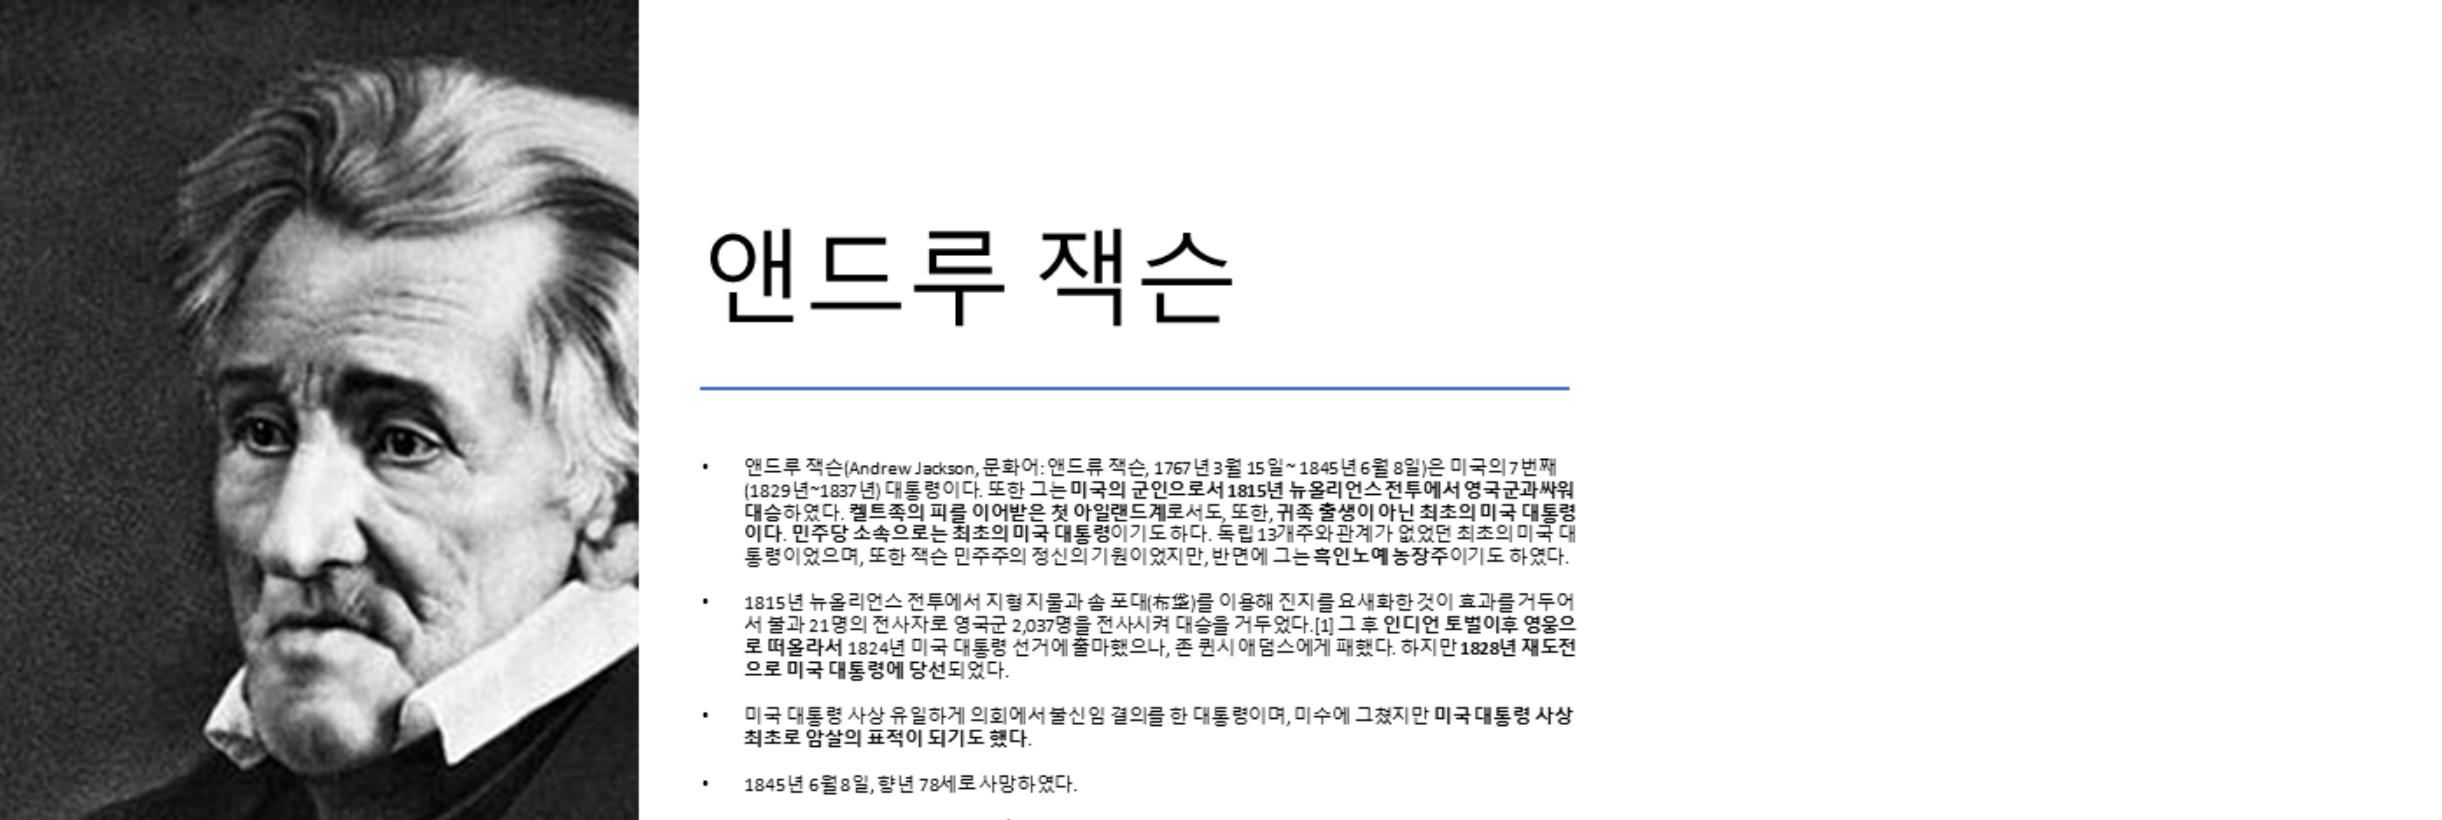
#include <cairo/cairo.h>
#include <math.h>
#include <stddef.h>

static cairo_t *cr;

static void use_color(int r, int g, int b) {
  cairo_set_source_rgb(cr, r / 255.0, g / 255.0, b / 255.0);
}

static void picture(const char *path, double x, double y, double w, double h) {
  cairo_surface_t *image = cairo_image_surface_create_from_png(path);
  cairo_save(cr);
  cairo_set_source_surface(cr, image, x, y);
  cairo_rectangle(cr, x, y, w, h);
  cairo_fill(cr);
  cairo_restore(cr);
  cairo_surface_destroy(image);
}

static void draw(void) {
  use_color(255, 255, 255);
  cairo_paint(cr);
  picture("img_01.png", 0, 0, 1578, 820);
}

int main(void) {
  cairo_surface_t *surface = cairo_image_surface_create(CAIRO_FORMAT_RGB24, 2442, 820);
  cr = cairo_create(surface);
  cairo_font_options_t *options = cairo_font_options_create();
  cairo_font_options_set_hint_metrics(options, CAIRO_HINT_METRICS_OFF);
  cairo_font_options_set_hint_style(options, CAIRO_HINT_STYLE_NONE);
  cairo_set_font_options(cr, options);
  cairo_set_miter_limit(cr, 4);
  draw();
  cairo_surface_write_to_png(surface, "out.png");
  cairo_font_options_destroy(options);
  cairo_destroy(cr);
  cairo_surface_destroy(surface);
  return 0;
}
